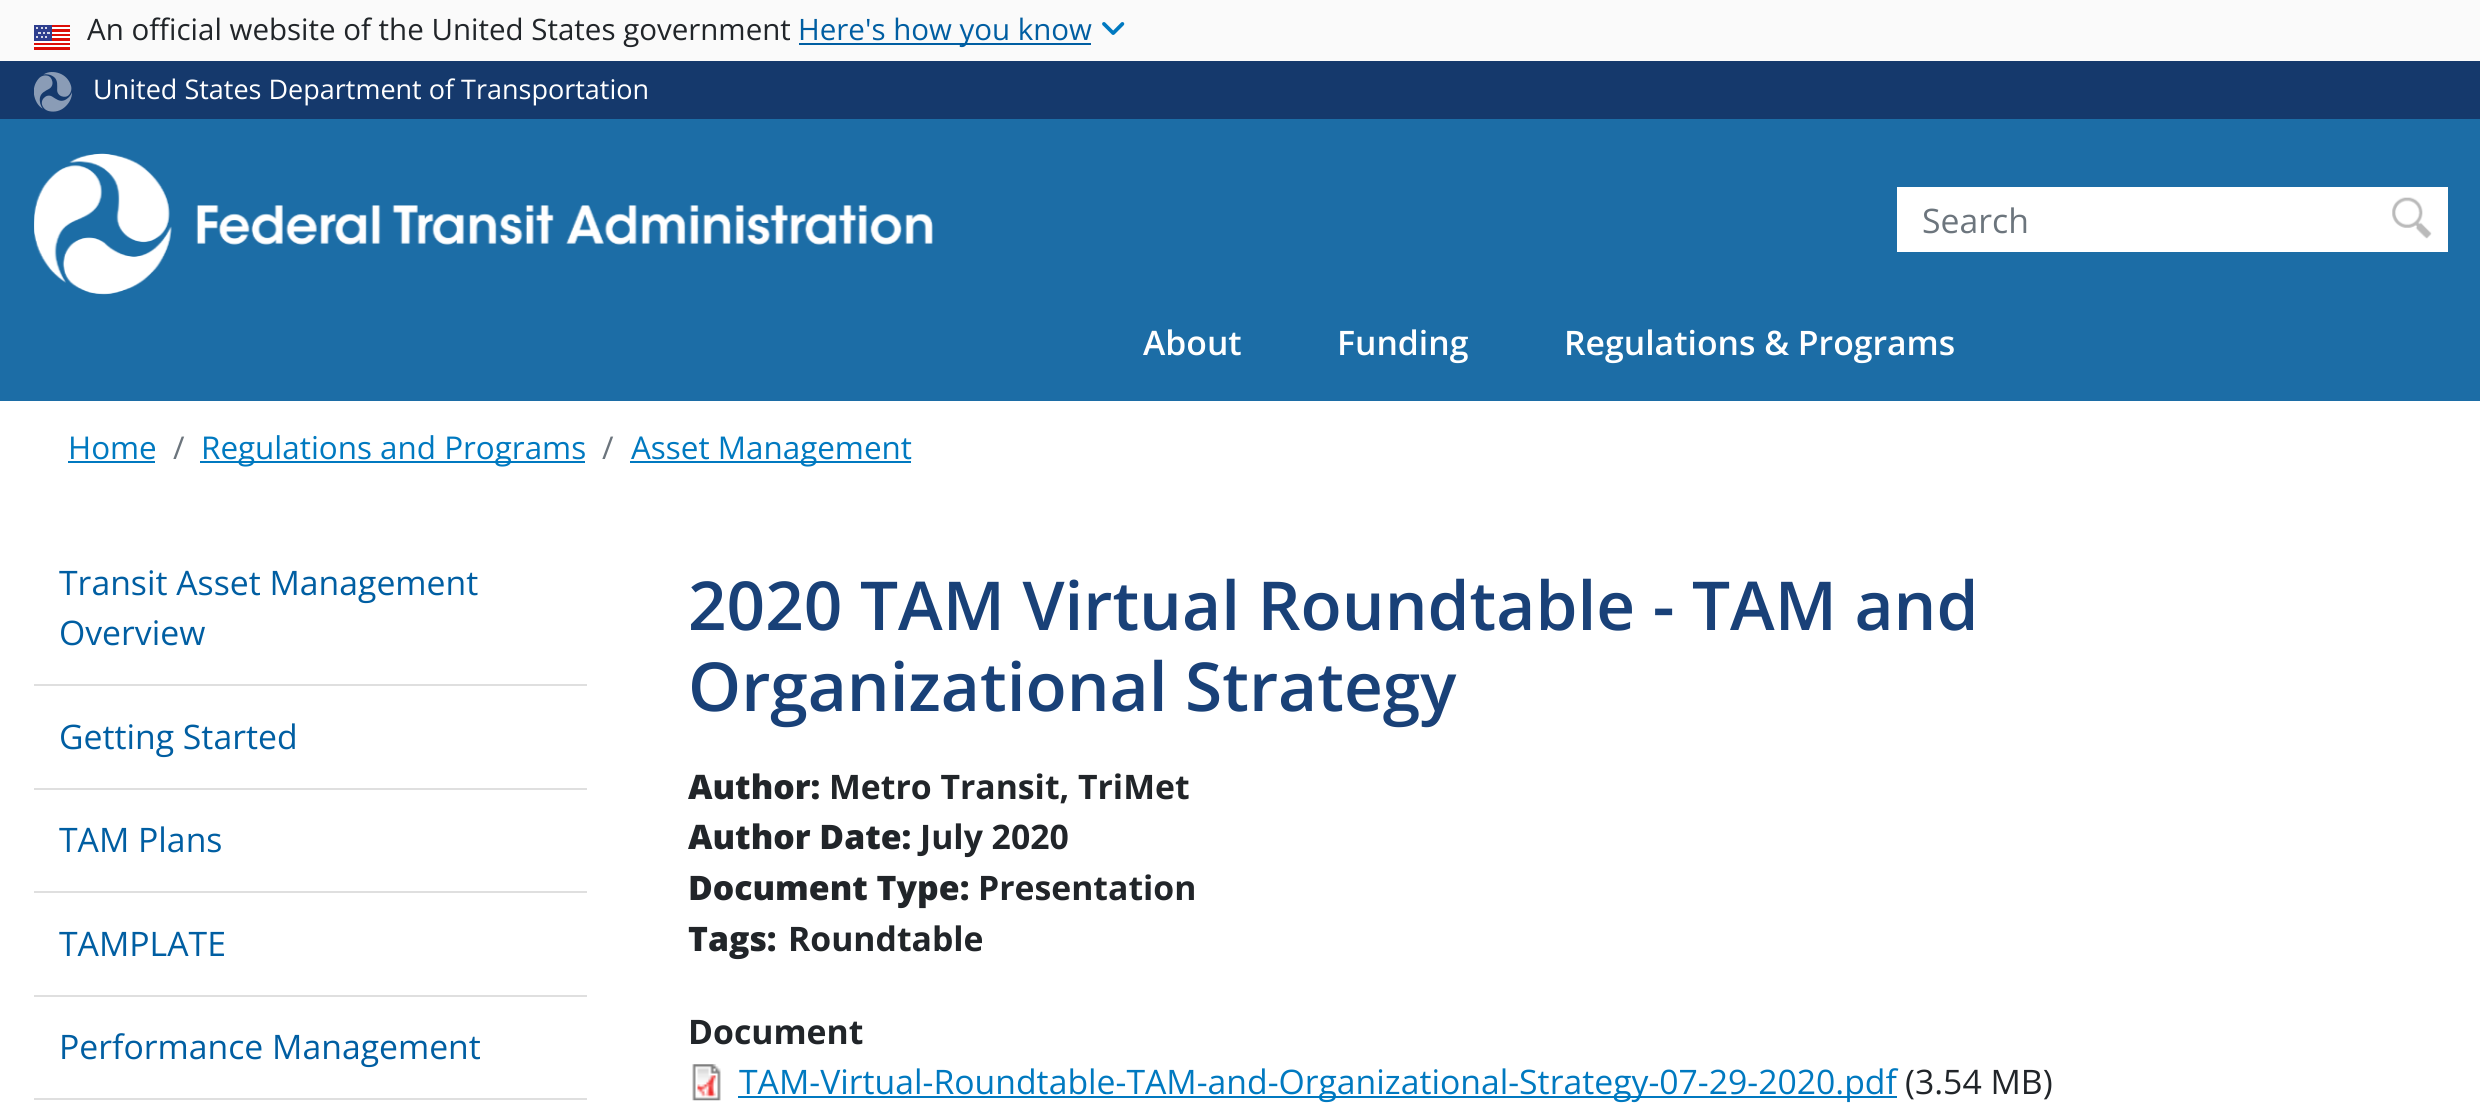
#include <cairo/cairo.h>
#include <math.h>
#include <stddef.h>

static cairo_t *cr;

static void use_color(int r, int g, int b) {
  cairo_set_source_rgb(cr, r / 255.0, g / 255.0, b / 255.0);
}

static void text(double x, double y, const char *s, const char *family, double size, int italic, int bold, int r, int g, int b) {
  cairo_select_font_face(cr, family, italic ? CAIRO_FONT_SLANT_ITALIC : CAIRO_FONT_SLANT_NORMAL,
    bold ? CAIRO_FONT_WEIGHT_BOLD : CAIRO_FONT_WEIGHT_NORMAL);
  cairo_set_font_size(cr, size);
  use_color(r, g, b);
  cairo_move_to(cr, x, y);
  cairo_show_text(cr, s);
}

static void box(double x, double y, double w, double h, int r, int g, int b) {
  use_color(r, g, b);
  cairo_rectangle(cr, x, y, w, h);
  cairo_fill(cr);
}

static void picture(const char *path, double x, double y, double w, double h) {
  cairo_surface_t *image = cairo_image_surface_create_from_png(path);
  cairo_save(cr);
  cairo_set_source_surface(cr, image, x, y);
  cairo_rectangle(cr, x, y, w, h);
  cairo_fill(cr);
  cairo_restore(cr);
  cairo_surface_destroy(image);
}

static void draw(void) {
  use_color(255, 255, 255);
  cairo_paint(cr);
  box(0, 0, 2480, 61, 250, 250, 250);
  picture("img_01.png", 34, 25, 36, 25);
  box(799, 43, 292, 2, 0, 94, 162);
  picture("img_02.png", 1102, 22, 23, 13);
  box(0, 61, 2480, 58, 21, 57, 108);
  picture("img_03.png", 34, 72, 38, 40);
  box(0, 119, 2480, 282, 28, 109, 166);
  picture("img_04.png", 34, 153, 899, 142);
  box(1897, 187, 551, 65, 255, 255, 255);
  picture("img_05.png", 2392, 197, 40, 42);
  box(68, 461, 87, 2, 0, 121, 192);
  box(200, 461, 385, 2, 0, 121, 192);
  box(630, 461, 281, 2, 0, 121, 192);
  box(34, 684, 553, 2, 223, 223, 223);
  box(34, 788, 553, 2, 223, 223, 223);
  box(34, 891, 553, 2, 223, 223, 223);
  box(34, 995, 553, 2, 223, 223, 223);
  box(34, 1098, 553, 2, 223, 223, 223);
  picture("img_06.png", 692, 1064, 29, 37);
  box(738, 1096, 1159, 2, 0, 121, 192);
  text(87, 40, "An official website of the United States government", "Open Sans", 29.5, 0, 0, 33, 37, 41);
  text(798, 40, "Here's how you know", "Open Sans", 29.5, 0, 0, 0, 94, 162);
  text(93, 99, "United States Department of Transportation", "Open Sans", 27, 0, 0, 255, 255, 255);
  text(1922, 233, "Search", "Open Sans", 33.75, 0, 0, 108, 117, 125);
  text(1143, 355, "About", "Open Sans SemiBold", 33.75, 0, 0, 255, 255, 255);
  text(1337, 355, "Funding", "Open Sans SemiBold", 33.75, 0, 0, 255, 255, 255);
  text(1564, 355, "Regulations & Programs", "Open Sans SemiBold", 33.75, 0, 0, 255, 255, 255);
  text(68, 459, "Home", "Open Sans", 31.4, 0, 0, 0, 121, 192);
  text(173, 459, "/", "Open Sans", 31.4, 0, 0, 108, 117, 125);
  text(201, 459, "Regulations and Programs", "Open Sans", 31.4, 0, 0, 0, 121, 192);
  text(602, 459, "/", "Open Sans", 31.4, 0, 0, 108, 117, 125);
  text(631, 459, "Asset Management", "Open Sans", 31.4, 0, 0, 0, 121, 192);
  text(59, 595, "Transit Asset Management", "Open Sans", 33.75, 0, 0, 0, 94, 162);
  text(59, 645, "Overview", "Open Sans", 33.75, 0, 0, 0, 94, 162);
  text(59, 749, "Getting Started", "Open Sans", 33.75, 0, 0, 0, 94, 162);
  text(59, 852, "TAM Plans", "Open Sans", 33.75, 0, 0, 0, 94, 162);
  text(59, 956, "TAMPLATE", "Open Sans", 33.75, 0, 0, 0, 94, 162);
  text(59, 1059, "Performance Management", "Open Sans", 33.75, 0, 0, 0, 94, 162);
  text(688, 630, "2020 TAM Virtual Roundtable - TAM and", "Open Sans SemiBold", 67.5, 0, 0, 25, 65, 120);
  text(688, 711, "Organizational Strategy", "Open Sans SemiBold", 67.5, 0, 0, 25, 65, 120);
  text(688, 799, "Author:", "Open Sans ExtraBold", 33.75, 0, 0, 33, 37, 41);
  text(829, 799, "Metro Transit, TriMet", "Open Sans", 33.75, 0, 1, 33, 37, 41);
  text(688, 849, "Author Date:", "Open Sans ExtraBold", 33.75, 0, 0, 33, 37, 41);
  text(920, 849, "July 2020", "Open Sans", 33.75, 0, 1, 33, 37, 41);
  text(688, 900, "Document Type:", "Open Sans ExtraBold", 33.75, 0, 0, 33, 37, 41);
  text(978, 900, "Presentation", "Open Sans", 33.75, 0, 1, 33, 37, 41);
  text(688, 951, "Tags:", "Open Sans ExtraBold", 33.75, 0, 0, 33, 37, 41);
  text(788, 951, "Roundtable", "Open Sans", 33.75, 0, 1, 33, 37, 41);
  text(688, 1044, "Document", "Open Sans", 33.75, 0, 1, 33, 37, 41);
  text(739, 1094, "TAM-Virtual-Roundtable-TAM-and-Organizational-Strategy-07-29-2020.pdf", "Open Sans", 33.75, 0, 0, 0, 121, 192);
  text(1905, 1094, "(3.54 MB)", "Open Sans", 33.75, 0, 0, 33, 37, 41);
}

int main(void) {
  cairo_surface_t *surface = cairo_image_surface_create(CAIRO_FORMAT_RGB24, 2480, 1106);
  cr = cairo_create(surface);
  cairo_font_options_t *options = cairo_font_options_create();
  cairo_font_options_set_hint_metrics(options, CAIRO_HINT_METRICS_OFF);
  cairo_font_options_set_hint_style(options, CAIRO_HINT_STYLE_NONE);
  cairo_set_font_options(cr, options);
  cairo_set_miter_limit(cr, 4);
  draw();
  cairo_surface_write_to_png(surface, "out.png");
  cairo_font_options_destroy(options);
  cairo_destroy(cr);
  cairo_surface_destroy(surface);
  return 0;
}
